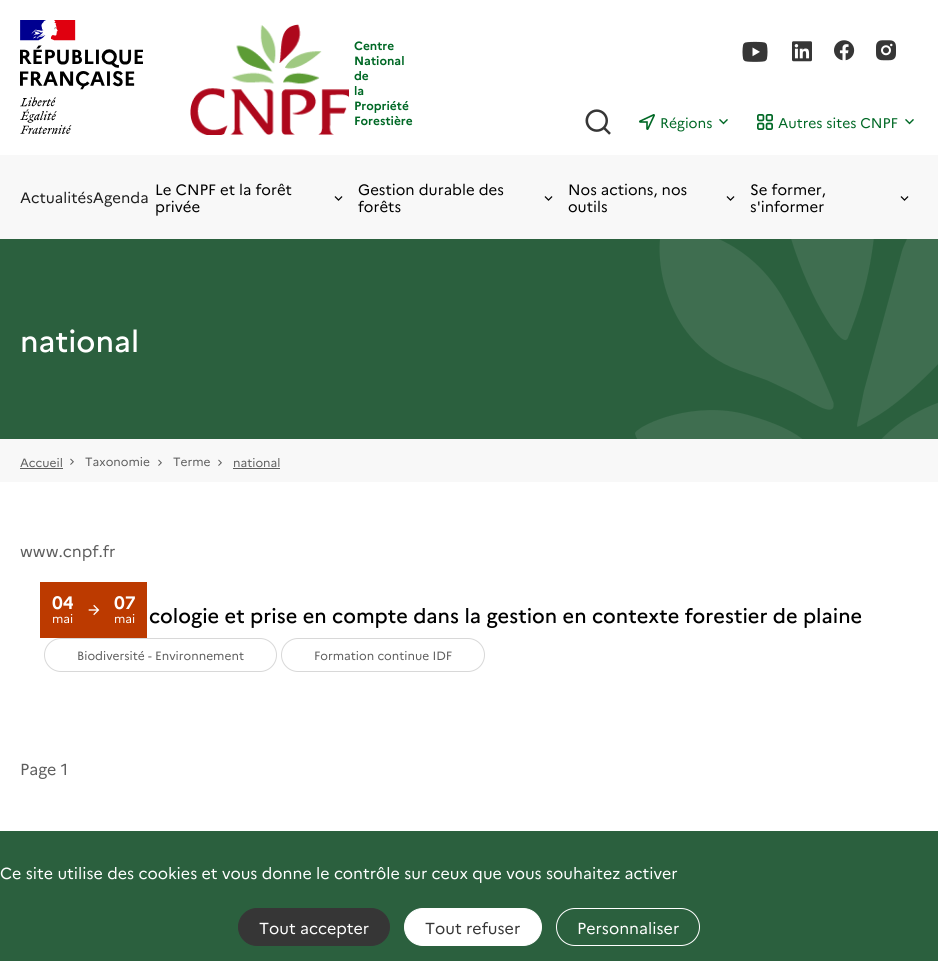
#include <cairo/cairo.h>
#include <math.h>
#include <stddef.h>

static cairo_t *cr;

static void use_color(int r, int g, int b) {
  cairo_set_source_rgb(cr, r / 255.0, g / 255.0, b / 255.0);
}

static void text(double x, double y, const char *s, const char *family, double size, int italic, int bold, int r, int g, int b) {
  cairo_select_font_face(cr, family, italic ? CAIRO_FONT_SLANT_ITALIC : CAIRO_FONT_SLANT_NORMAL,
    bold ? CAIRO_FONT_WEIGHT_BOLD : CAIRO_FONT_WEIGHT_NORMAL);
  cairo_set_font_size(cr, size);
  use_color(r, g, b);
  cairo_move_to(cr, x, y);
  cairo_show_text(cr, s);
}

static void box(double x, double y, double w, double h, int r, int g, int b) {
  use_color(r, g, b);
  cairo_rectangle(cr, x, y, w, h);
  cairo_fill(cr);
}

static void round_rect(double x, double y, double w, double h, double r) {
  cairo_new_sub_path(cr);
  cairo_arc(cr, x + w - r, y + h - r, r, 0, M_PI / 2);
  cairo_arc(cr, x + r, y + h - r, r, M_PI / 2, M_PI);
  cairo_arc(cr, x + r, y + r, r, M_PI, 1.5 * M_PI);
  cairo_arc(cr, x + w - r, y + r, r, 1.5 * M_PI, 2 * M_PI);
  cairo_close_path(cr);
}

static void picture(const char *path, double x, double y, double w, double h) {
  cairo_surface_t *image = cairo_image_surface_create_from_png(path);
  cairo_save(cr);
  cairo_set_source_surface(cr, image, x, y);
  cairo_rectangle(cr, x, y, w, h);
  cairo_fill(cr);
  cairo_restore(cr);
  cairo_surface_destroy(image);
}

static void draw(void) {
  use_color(255, 255, 255);
  cairo_paint(cr);
  picture("img_01.png", 20, 20, 123, 114);
  picture("img_02.png", 190, 24, 159, 111);
  picture("img_03.png", 742, 41, 26, 21);
  picture("img_04.png", 792, 41, 20, 21);
  picture("img_05.png", 834, 40, 21, 21);
  picture("img_06.png", 876, 40, 20, 21);
  picture("img_07.png", 585, 109, 26, 26);
  picture("img_08.png", 639, 114, 16, 16);
  picture("img_09.png", 719, 119, 9, 6);
  picture("img_10.png", 757, 114, 16, 16);
  picture("img_09.png", 905, 119, 9, 6);
  box(0, 155, 938, 84, 248, 248, 248);
  picture("img_11.png", 334, 196, 9, 5);
  picture("img_11.png", 544, 196, 9, 5);
  picture("img_11.png", 726, 196, 9, 5);
  picture("img_11.png", 900, 196, 9, 5);
  box(0, 239, 938, 200, 43, 96, 62);
  picture("img_12.png", 635, 239, 303, 200);
  box(0, 439, 938, 43, 248, 248, 248);
  box(20, 468, 43, 1, 93, 93, 93);
  picture("img_13.png", 70, 458, 4, 7);
  picture("img_13.png", 158, 459, 4, 7);
  picture("img_13.png", 218, 459, 4, 7);
  box(233, 468, 47, 1, 93, 93, 93);
  box(40, 582, 107, 56, 188, 58, 0);
  picture("img_14.png", 88, 604, 12, 12);
  round_rect(44.5, 638.5, 232, 33, 16.5);
  use_color(216, 216, 216);
  cairo_set_line_width(cr, 1);
  cairo_stroke(cr);
  round_rect(281.5, 638.5, 203, 33, 16.5);
  cairo_stroke(cr);
  box(0, 831, 938, 130, 43, 96, 62);
  use_color(54, 54, 54);
  round_rect(238.5, 908.5, 151, 37, 18.5);
  cairo_fill_preserve(cr);
  cairo_stroke(cr);
  use_color(255, 255, 255);
  round_rect(404.5, 908.5, 137, 37, 18.5);
  cairo_fill_preserve(cr);
  cairo_stroke(cr);
  round_rect(556.5, 908.5, 143, 37, 18.5);
  cairo_stroke(cr);
  text(354, 50, "Centre", "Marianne", 12, 0, 1, 0, 104, 37);
  text(354, 65, "National", "Marianne", 12, 0, 1, 0, 104, 37);
  text(354, 80, "de", "Marianne", 12, 0, 1, 0, 104, 37);
  text(354, 95, "la", "Marianne", 12, 0, 1, 0, 104, 37);
  text(354, 110, "Propriété", "Marianne", 12, 0, 1, 0, 104, 37);
  text(354, 125, "Forestière", "Marianne", 12, 0, 1, 0, 104, 37);
  text(660, 128, "Régions", "Marianne", 14, 0, 0, 0, 104, 37);
  text(778, 128, "Autres sites CNPF", "Marianne", 14, 0, 0, 0, 104, 37);
  text(20, 203, "ActualitésAgenda", "Marianne", 15, 0, 0, 30, 30, 30);
  text(155, 195, "Le CNPF et la forêt", "Marianne", 15, 0, 0, 0, 0, 0);
  text(155, 212, "privée", "Marianne", 15, 0, 0, 0, 0, 0);
  text(358, 195, "Gestion durable des", "Marianne", 15, 0, 0, 0, 0, 0);
  text(358, 212, "forêts", "Marianne", 15, 0, 0, 0, 0, 0);
  text(568, 195, "Nos actions, nos", "Marianne", 15, 0, 0, 0, 0, 0);
  text(568, 212, "outils", "Marianne", 15, 0, 0, 0, 0, 0);
  text(750, 195, "Se former,", "Marianne", 15, 0, 0, 0, 0, 0);
  text(750, 212, "s'informer", "Marianne", 15, 0, 0, 0, 0, 0);
  text(20, 352, "national", "Marianne Medium", 30, 0, 0, 255, 255, 255);
  text(20, 467, "Accueil", "Marianne", 12, 0, 0, 93, 93, 93);
  text(85, 466, "Taxonomie", "Marianne", 12, 0, 0, 93, 93, 93);
  text(173, 466, "Terme", "Marianne", 12, 0, 0, 93, 93, 93);
  text(233, 467, "national", "Marianne", 12, 0, 0, 93, 93, 93);
  text(20, 557, "www.cnpf.fr", "Marianne", 16, 0, 0, 93, 93, 93);
  text(52, 609, "04", "Marianne", 18, 0, 1, 255, 255, 255);
  text(52, 623, "mai", "Marianne", 12, 0, 0, 255, 255, 255);
  text(114, 609, "07", "Marianne", 18, 0, 1, 255, 255, 255);
  text(114, 623, "mai", "Marianne", 12, 0, 0, 255, 255, 255);
  text(149, 623, "cologie et prise en compte dans la gestion en contexte forestier de plaine", "Marianne Medium", 20, 0, 0, 0, 0, 0);
  text(77, 660, "Biodiversité - Environnement", "Marianne", 12, 0, 0, 93, 93, 93);
  text(314, 660, "Formation continue IDF", "Marianne", 12, 0, 0, 93, 93, 93);
  text(20, 775, "Page 1", "Marianne", 16, 0, 0, 93, 93, 93);
  text(0, 879, "Ce site utilise des cookies et vous donne le contrôle sur ceux que vous souhaitez activer", "Marianne", 16, 0, 0, 255, 255, 255);
  text(259, 934, "Tout accepter", "Marianne", 16, 0, 0, 255, 255, 255);
  text(425, 934, "Tout refuser", "Marianne", 16, 0, 0, 54, 54, 54);
  text(577, 934, "Personnaliser", "Marianne", 16, 0, 0, 255, 255, 255);
}

int main(void) {
  cairo_surface_t *surface = cairo_image_surface_create(CAIRO_FORMAT_RGB24, 938, 961);
  cr = cairo_create(surface);
  cairo_font_options_t *options = cairo_font_options_create();
  cairo_font_options_set_hint_metrics(options, CAIRO_HINT_METRICS_OFF);
  cairo_font_options_set_hint_style(options, CAIRO_HINT_STYLE_NONE);
  cairo_set_font_options(cr, options);
  cairo_set_miter_limit(cr, 4);
  draw();
  cairo_surface_write_to_png(surface, "out.png");
  cairo_font_options_destroy(options);
  cairo_destroy(cr);
  cairo_surface_destroy(surface);
  return 0;
}
